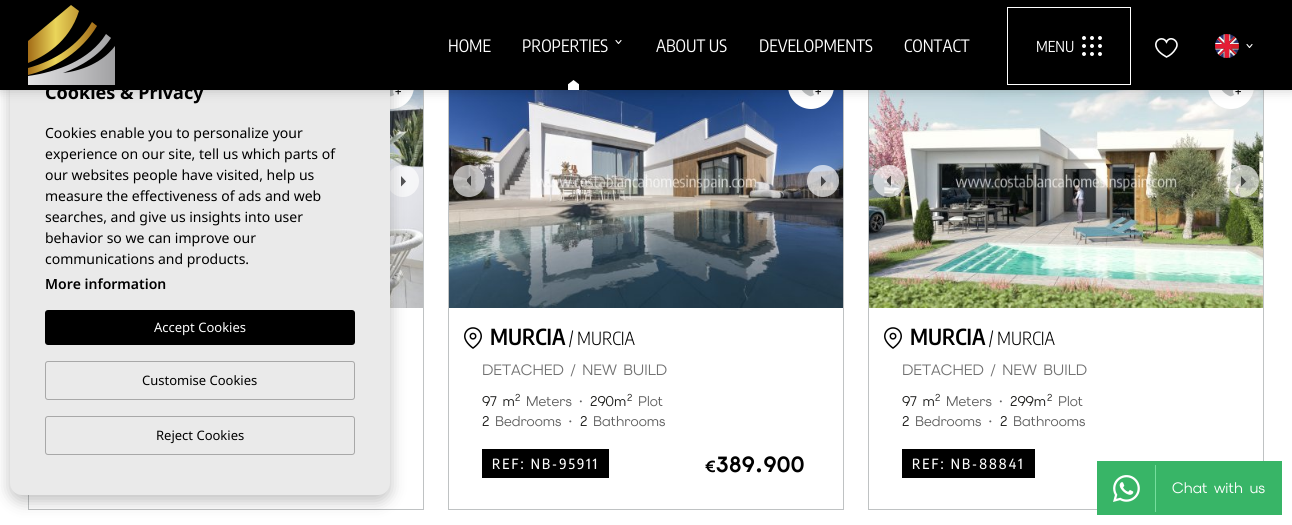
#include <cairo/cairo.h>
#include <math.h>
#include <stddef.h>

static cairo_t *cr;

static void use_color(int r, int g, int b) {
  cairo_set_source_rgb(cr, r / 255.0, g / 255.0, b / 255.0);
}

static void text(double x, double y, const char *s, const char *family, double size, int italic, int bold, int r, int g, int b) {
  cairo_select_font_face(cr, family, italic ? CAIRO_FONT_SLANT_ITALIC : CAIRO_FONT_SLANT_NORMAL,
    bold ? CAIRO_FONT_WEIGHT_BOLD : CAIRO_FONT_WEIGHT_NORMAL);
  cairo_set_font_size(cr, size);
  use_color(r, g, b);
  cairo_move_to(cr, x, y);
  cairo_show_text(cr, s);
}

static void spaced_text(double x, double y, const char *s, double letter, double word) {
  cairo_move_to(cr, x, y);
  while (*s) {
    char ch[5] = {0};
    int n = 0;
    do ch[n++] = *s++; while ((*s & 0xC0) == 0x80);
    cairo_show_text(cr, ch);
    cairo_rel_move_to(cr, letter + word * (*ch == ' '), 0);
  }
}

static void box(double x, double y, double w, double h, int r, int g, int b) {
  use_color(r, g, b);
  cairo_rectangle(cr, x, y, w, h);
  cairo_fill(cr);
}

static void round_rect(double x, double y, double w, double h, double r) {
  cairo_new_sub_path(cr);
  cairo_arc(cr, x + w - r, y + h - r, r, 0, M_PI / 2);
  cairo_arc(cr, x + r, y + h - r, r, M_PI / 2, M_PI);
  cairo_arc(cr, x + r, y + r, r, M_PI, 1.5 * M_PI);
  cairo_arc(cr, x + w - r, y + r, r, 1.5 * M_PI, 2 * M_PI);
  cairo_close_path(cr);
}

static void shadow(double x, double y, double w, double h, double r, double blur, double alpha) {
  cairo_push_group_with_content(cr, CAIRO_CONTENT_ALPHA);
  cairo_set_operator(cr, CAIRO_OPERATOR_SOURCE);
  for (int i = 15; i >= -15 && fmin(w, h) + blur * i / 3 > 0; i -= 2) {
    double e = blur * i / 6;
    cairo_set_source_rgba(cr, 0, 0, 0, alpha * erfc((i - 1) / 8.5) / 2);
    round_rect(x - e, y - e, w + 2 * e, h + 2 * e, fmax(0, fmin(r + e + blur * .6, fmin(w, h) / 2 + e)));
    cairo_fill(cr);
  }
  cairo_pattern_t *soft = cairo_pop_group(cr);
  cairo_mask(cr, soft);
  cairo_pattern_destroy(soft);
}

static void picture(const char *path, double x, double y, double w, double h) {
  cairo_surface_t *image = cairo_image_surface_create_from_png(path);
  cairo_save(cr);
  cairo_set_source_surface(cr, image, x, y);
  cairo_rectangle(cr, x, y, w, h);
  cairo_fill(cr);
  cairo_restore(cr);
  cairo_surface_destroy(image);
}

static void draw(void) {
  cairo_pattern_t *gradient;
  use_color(255, 255, 255);
  cairo_paint(cr);
  cairo_rectangle(cr, 28.5, 53.5, 395, 456);
  use_color(191, 194, 195);
  cairo_set_line_width(cr, 1);
  cairo_stroke(cr);
  picture("img_04.png", 390, 90, 33, 218);
  cairo_set_source_rgba(cr, 1, 1, 1, 0.64);
  cairo_arc(cr, 403, 181, 16, 0, 2 * M_PI);
  cairo_fill(cr);
  use_color(83, 83, 85);
  cairo_new_path(cr);
  cairo_move_to(cr, 401, 176);
  cairo_line_to(cr, 406, 181.5);
  cairo_line_to(cr, 401, 186.5);
  cairo_fill(cr);
  use_color(255, 255, 255);
  cairo_arc(cr, 391, 86, 23, 0, 2 * M_PI);
  cairo_fill(cr);
  picture("img_05.png", 390, 90, 13, 7);
  use_color(0, 0, 0);
  shadow(10, 58, 380, 443, 12, 8, 0.25);
  use_color(234, 234, 234);
  round_rect(10, 52, 380, 443, 12);
  cairo_fill(cr);
  cairo_rectangle(cr, 448.5, 53.5, 395, 456);
  use_color(191, 194, 195);
  cairo_stroke(cr);
  picture("img_07.png", 449, 90, 394, 218);
  use_color(255, 255, 255);
  cairo_arc(cr, 811, 86, 23, 0, 2 * M_PI);
  cairo_fill(cr);
  picture("img_06.png", 801, 90, 22, 7);
  cairo_rectangle(cr, 868.5, 53.5, 395, 456);
  use_color(191, 194, 195);
  cairo_stroke(cr);
  picture("img_09.png", 869, 90, 394, 218);
  use_color(255, 255, 255);
  cairo_arc(cr, 1231, 86, 23, 0, 2 * M_PI);
  cairo_fill(cr);
  picture("img_06.png", 1221, 90, 22, 7);
  use_color(0, 0, 0);
  shadow(0, 0, 1292, 90, 0, 6, 0.2);
  box(0, 0, 1292, 90, 0, 0, 0);
  gradient = cairo_pattern_create_linear(28, 40, 97, 40);
  cairo_pattern_add_color_stop_rgba(gradient, 0, 0.639, 0.424, 0.09, 1);
  cairo_pattern_add_color_stop_rgba(gradient, 0.4, 0.918, 0.835, 0.353, 1);
  cairo_pattern_add_color_stop_rgba(gradient, 1, 0.639, 0.424, 0.09, 1);
  cairo_set_source(cr, gradient);
  cairo_pattern_destroy(gradient);
  cairo_new_path(cr);
  cairo_move_to(cr, 79, 11);
  cairo_curve_to(cr, 69, 43, 43, 57, 28, 63);
  cairo_line_to(cr, 28, 41);
  cairo_line_to(cr, 71, 5);
  cairo_close_path(cr);
  cairo_move_to(cr, 92, 22);
  cairo_curve_to(cr, 78, 46, 54, 61, 28, 68);
  cairo_line_to(cr, 28, 75);
  cairo_curve_to(cr, 56, 68, 82, 51, 97, 26);
  cairo_close_path(cr);
  cairo_fill(cr);
  cairo_save(cr);
  cairo_rectangle(cr, 28, 5, 87, 80);
  cairo_clip(cr);
  gradient = cairo_pattern_create_linear(28, 60, 115, 60);
  cairo_pattern_add_color_stop_rgba(gradient, 0, 0.89, 0.89, 0.898, 1);
  cairo_pattern_add_color_stop_rgba(gradient, 1, 0.631, 0.631, 0.639, 1);
  cairo_set_source(cr, gradient);
  cairo_pattern_destroy(gradient);
  cairo_new_path(cr);
  cairo_move_to(cr, 115, 46);
  cairo_line_to(cr, 115, 86);
  cairo_line_to(cr, 28, 86);
  cairo_line_to(cr, 28, 76);
  cairo_curve_to(cr, 57, 72, 90, 60, 106, 34);
  cairo_line_to(cr, 111, 38);
  cairo_curve_to(cr, 100, 55, 82, 66, 63, 73);
  cairo_curve_to(cr, 94, 69, 109, 54, 115, 46);
  cairo_close_path(cr);
  cairo_fill(cr);
  cairo_restore(cr);
  picture("img_01.png", 568, 80, 11, 10);
  cairo_new_path(cr);
  cairo_move_to(cr, 621, 40.5);
  cairo_line_to(cr, 618.5, 43.5);
  cairo_line_to(cr, 616, 40.5);
  use_color(255, 255, 255);
  cairo_set_line_width(cr, 1.1);
  cairo_set_line_cap(cr, CAIRO_LINE_CAP_ROUND);
  cairo_set_line_join(cr, CAIRO_LINE_JOIN_ROUND);
  cairo_stroke(cr);
  cairo_rectangle(cr, 1007.5, 7.5, 123, 77);
  cairo_set_line_width(cr, 1);
  cairo_set_line_cap(cr, CAIRO_LINE_CAP_BUTT);
  cairo_set_line_join(cr, CAIRO_LINE_JOIN_MITER);
  cairo_stroke(cr);
  picture("img_02.png", 1082, 36, 20, 20);
  cairo_new_path(cr);
  cairo_move_to(cr, 1175.5, 49);
  cairo_curve_to(cr, 1173.5, 52.5, 1170, 55.5, 1166.5, 57);
  cairo_curve_to(cr, 1164, 55.5, 1161.5, 54, 1159, 51.5);
  cairo_curve_to(cr, 1150, 41.5, 1162.5, 34.5, 1166.5, 42);
  cairo_curve_to(cr, 1170, 34.5, 1181, 41.5, 1175.5, 49);
  cairo_set_line_width(cr, 1.6);
  cairo_stroke(cr);
  picture("img_03.png", 1215, 34, 24, 24);
  cairo_new_path(cr);
  cairo_move_to(cr, 1252, 44.5);
  cairo_line_to(cr, 1249.5, 47.5);
  cairo_line_to(cr, 1247, 44.5);
  cairo_set_line_width(cr, 1.1);
  cairo_set_line_cap(cr, CAIRO_LINE_CAP_ROUND);
  cairo_set_line_join(cr, CAIRO_LINE_JOIN_ROUND);
  cairo_stroke(cr);
  use_color(0, 0, 0);
  round_rect(45, 310, 310, 35, 3);
  cairo_fill(cr);
  round_rect(45.5, 361.5, 309, 38, 2.5);
  use_color(168, 168, 168);
  cairo_set_line_width(cr, 1);
  cairo_set_line_cap(cr, CAIRO_LINE_CAP_BUTT);
  cairo_set_line_join(cr, CAIRO_LINE_JOIN_MITER);
  cairo_stroke(cr);
  round_rect(45.5, 416.5, 309, 38, 2.5);
  cairo_stroke(cr);
  cairo_set_source_rgba(cr, 1, 1, 1, 0.64);
  cairo_new_path(cr);
  cairo_move_to(cr, 469, 197);
  cairo_curve_to(cr, 460, 197, 453, 190, 453, 181);
  cairo_curve_to(cr, 453, 172, 460, 165, 469, 165);
  cairo_curve_to(cr, 478, 165, 485, 172, 485, 181);
  cairo_curve_to(cr, 485, 190, 478, 197, 469, 197);
  cairo_close_path(cr);
  cairo_fill(cr);
  cairo_save(cr);
  cairo_rectangle(cr, 467, 176, 5, 10);
  cairo_clip(cr);
  cairo_set_source_rgba(cr, 0, 0, 0, 0.64);
  cairo_new_path(cr);
  cairo_move_to(cr, 471, 186);
  cairo_line_to(cr, 466, 180.5);
  cairo_line_to(cr, 471, 175.5);
  cairo_fill(cr);
  cairo_restore(cr);
  cairo_arc(cr, 823, 181, 16, 0, 2 * M_PI);
  cairo_fill(cr);
  cairo_set_source_rgba(cr, 0, 0, 0, 0.64);
  cairo_new_path(cr);
  cairo_move_to(cr, 821, 176);
  cairo_line_to(cr, 826, 181.5);
  cairo_line_to(cr, 821, 186.5);
  cairo_fill(cr);
  picture("img_08.png", 464, 327, 18, 22);
  box(482, 449, 127, 29, 0, 0, 0);
  cairo_set_source_rgba(cr, 1, 1, 1, 0.64);
  cairo_new_path(cr);
  cairo_move_to(cr, 889, 197);
  cairo_curve_to(cr, 880, 197, 873, 190, 873, 181);
  cairo_curve_to(cr, 873, 172, 880, 165, 889, 165);
  cairo_curve_to(cr, 898, 165, 905, 172, 905, 181);
  cairo_curve_to(cr, 905, 190, 898, 197, 889, 197);
  cairo_close_path(cr);
  cairo_fill(cr);
  cairo_save(cr);
  cairo_rectangle(cr, 887, 176, 5, 10);
  cairo_clip(cr);
  cairo_set_source_rgba(cr, 0, 0, 0, 0.64);
  cairo_new_path(cr);
  cairo_move_to(cr, 891, 186);
  cairo_line_to(cr, 886, 180.5);
  cairo_line_to(cr, 891, 175.5);
  cairo_fill(cr);
  cairo_restore(cr);
  cairo_arc(cr, 1243, 181, 16, 0, 2 * M_PI);
  cairo_fill(cr);
  cairo_set_source_rgba(cr, 0, 0, 0, 0.64);
  cairo_new_path(cr);
  cairo_move_to(cr, 1241, 176);
  cairo_line_to(cr, 1246, 181.5);
  cairo_line_to(cr, 1241, 186.5);
  cairo_fill(cr);
  picture("img_08.png", 884, 327, 18, 22);
  box(902, 449, 133, 29, 0, 0, 0);
  box(1097, 461, 185, 54, 56, 181, 103);
  box(1155, 465, 1, 47, 117, 222, 157);
  picture("img_10.png", 1113, 475, 27, 27);
  text(448, 52, "HOME", "Encode Sans Condensed", 17, 0, 0, 255, 255, 255);
  text(522, 52, "PROPERTIES", "Encode Sans Condensed", 17, 0, 0, 255, 255, 255);
  text(656, 52, "ABOUT US", "Encode Sans Condensed", 17, 0, 0, 255, 255, 255);
  text(759, 52, "DEVELOPMENTS", "Encode Sans Condensed", 17, 0, 0, 255, 255, 255);
  text(904, 52, "CONTACT", "Encode Sans Condensed", 17, 0, 0, 255, 255, 255);
  text(1036, 52, "MENU", "Encode Sans Condensed", 15, 0, 0, 255, 255, 255);
  text(45, 99, "Cookies & Privacy", "Noto Sans", 18, 0, 1, 0, 0, 0);
  text(45, 138, "Cookies enable you to personalize your", "Noto Sans", 14, 0, 0, 0, 0, 0);
  text(45, 159, "experience on our site, tell us which parts of", "Noto Sans", 14, 0, 0, 0, 0, 0);
  text(45, 180, "our websites people have visited, help us", "Noto Sans", 14, 0, 0, 0, 0, 0);
  text(45, 201, "measure the effectiveness of ads and web", "Noto Sans", 14, 0, 0, 0, 0, 0);
  text(45, 222, "searches, and give us insights into user", "Noto Sans", 14, 0, 0, 0, 0, 0);
  text(45, 243, "behavior so we can improve our", "Noto Sans", 14, 0, 0, 0, 0, 0);
  text(45, 264, "communications and products.", "Noto Sans", 14, 0, 0, 0, 0, 0);
  text(45, 289, "More information", "Noto Sans SemiBold", 14, 0, 0, 0, 0, 0);
  text(154, 332, "Accept Cookies", "Noto Sans", 13, 0, 0, 255, 255, 255);
  text(142, 385, "Customise Cookies", "Noto Sans", 13, 0, 0, 0, 0, 0);
  text(156, 440, "Reject Cookies", "Noto Sans", 13, 0, 0, 0, 0, 0);
  text(490, 345, "MURCIA", "Encode Sans Condensed SemiBold", 22, 0, 0, 0, 0, 0);
  text(569, 345, "/ MURCIA", "Encode Sans Condensed Light", 18, 0, 0, 0, 0, 0);
  text(482, 375, "DETACHED / NEW BUILD", "Elms Sans", 15, 0, 0, 113, 113, 113);
  text(482, 406, "97 m", "Elms Sans", 14, 0, 0, 29, 29, 27);
  text(515, 401, "2", "Elms Sans", 10, 0, 0, 29, 29, 27);
  text(526, 406, "Meters ·", "Elms Sans", 14, 0, 0, 95, 95, 95);
  text(590, 406, "290m", "Elms Sans", 14, 0, 0, 29, 29, 27);
  text(627, 401, "2", "Elms Sans", 10, 0, 0, 29, 29, 27);
  text(638, 406, "Plot", "Elms Sans", 14, 0, 0, 95, 95, 95);
  text(482, 426, "2", "Elms Sans", 14, 0, 0, 29, 29, 27);
  text(495, 426, "Bedrooms ·", "Elms Sans", 14, 0, 0, 95, 95, 95);
  text(580, 426, "2", "Elms Sans", 14, 0, 0, 29, 29, 27);
  text(593, 426, "Bathrooms", "Elms Sans", 14, 0, 0, 95, 95, 95);
  cairo_select_font_face(cr, "Encode Sans Condensed Medium", CAIRO_FONT_SLANT_NORMAL, CAIRO_FONT_WEIGHT_NORMAL);
  use_color(255, 255, 255);
  spaced_text(492, 469, "REF: NB-95911", 2.1, 0);
  text(705, 472, "€", "Elms Sans", 16, 0, 1, 0, 0, 0);
  cairo_set_font_size(cr, 22);
  spaced_text(716, 472, "389.900", 0.5, 0);
  text(910, 345, "MURCIA", "Encode Sans Condensed SemiBold", 22, 0, 0, 0, 0, 0);
  text(989, 345, "/ MURCIA", "Encode Sans Condensed Light", 18, 0, 0, 0, 0, 0);
  text(902, 375, "DETACHED / NEW BUILD", "Elms Sans", 15, 0, 0, 113, 113, 113);
  text(902, 406, "97 m", "Elms Sans", 14, 0, 0, 29, 29, 27);
  text(935, 401, "2", "Elms Sans", 10, 0, 0, 29, 29, 27);
  text(946, 406, "Meters ·", "Elms Sans", 14, 0, 0, 95, 95, 95);
  text(1010, 406, "299m", "Elms Sans", 14, 0, 0, 29, 29, 27);
  text(1047, 401, "2", "Elms Sans", 10, 0, 0, 29, 29, 27);
  text(1058, 406, "Plot", "Elms Sans", 14, 0, 0, 95, 95, 95);
  text(902, 426, "2", "Elms Sans", 14, 0, 0, 29, 29, 27);
  text(915, 426, "Bedrooms ·", "Elms Sans", 14, 0, 0, 95, 95, 95);
  text(1000, 426, "2", "Elms Sans", 14, 0, 0, 29, 29, 27);
  text(1013, 426, "Bathrooms", "Elms Sans", 14, 0, 0, 95, 95, 95);
  cairo_select_font_face(cr, "Encode Sans Condensed Medium", CAIRO_FONT_SLANT_NORMAL, CAIRO_FONT_WEIGHT_NORMAL);
  use_color(255, 255, 255);
  spaced_text(912, 469, "REF: NB-88841", 2.1, 0);
  text(1172, 493, "Chat with us", "Elms Sans", 15, 0, 0, 255, 255, 255);
}

int main(void) {
  cairo_surface_t *surface = cairo_image_surface_create(CAIRO_FORMAT_RGB24, 1292, 525);
  cr = cairo_create(surface);
  cairo_font_options_t *options = cairo_font_options_create();
  cairo_font_options_set_hint_metrics(options, CAIRO_HINT_METRICS_OFF);
  cairo_font_options_set_hint_style(options, CAIRO_HINT_STYLE_NONE);
  cairo_set_font_options(cr, options);
  cairo_set_miter_limit(cr, 4);
  draw();
  cairo_surface_write_to_png(surface, "out.png");
  cairo_font_options_destroy(options);
  cairo_destroy(cr);
  cairo_surface_destroy(surface);
  return 0;
}
